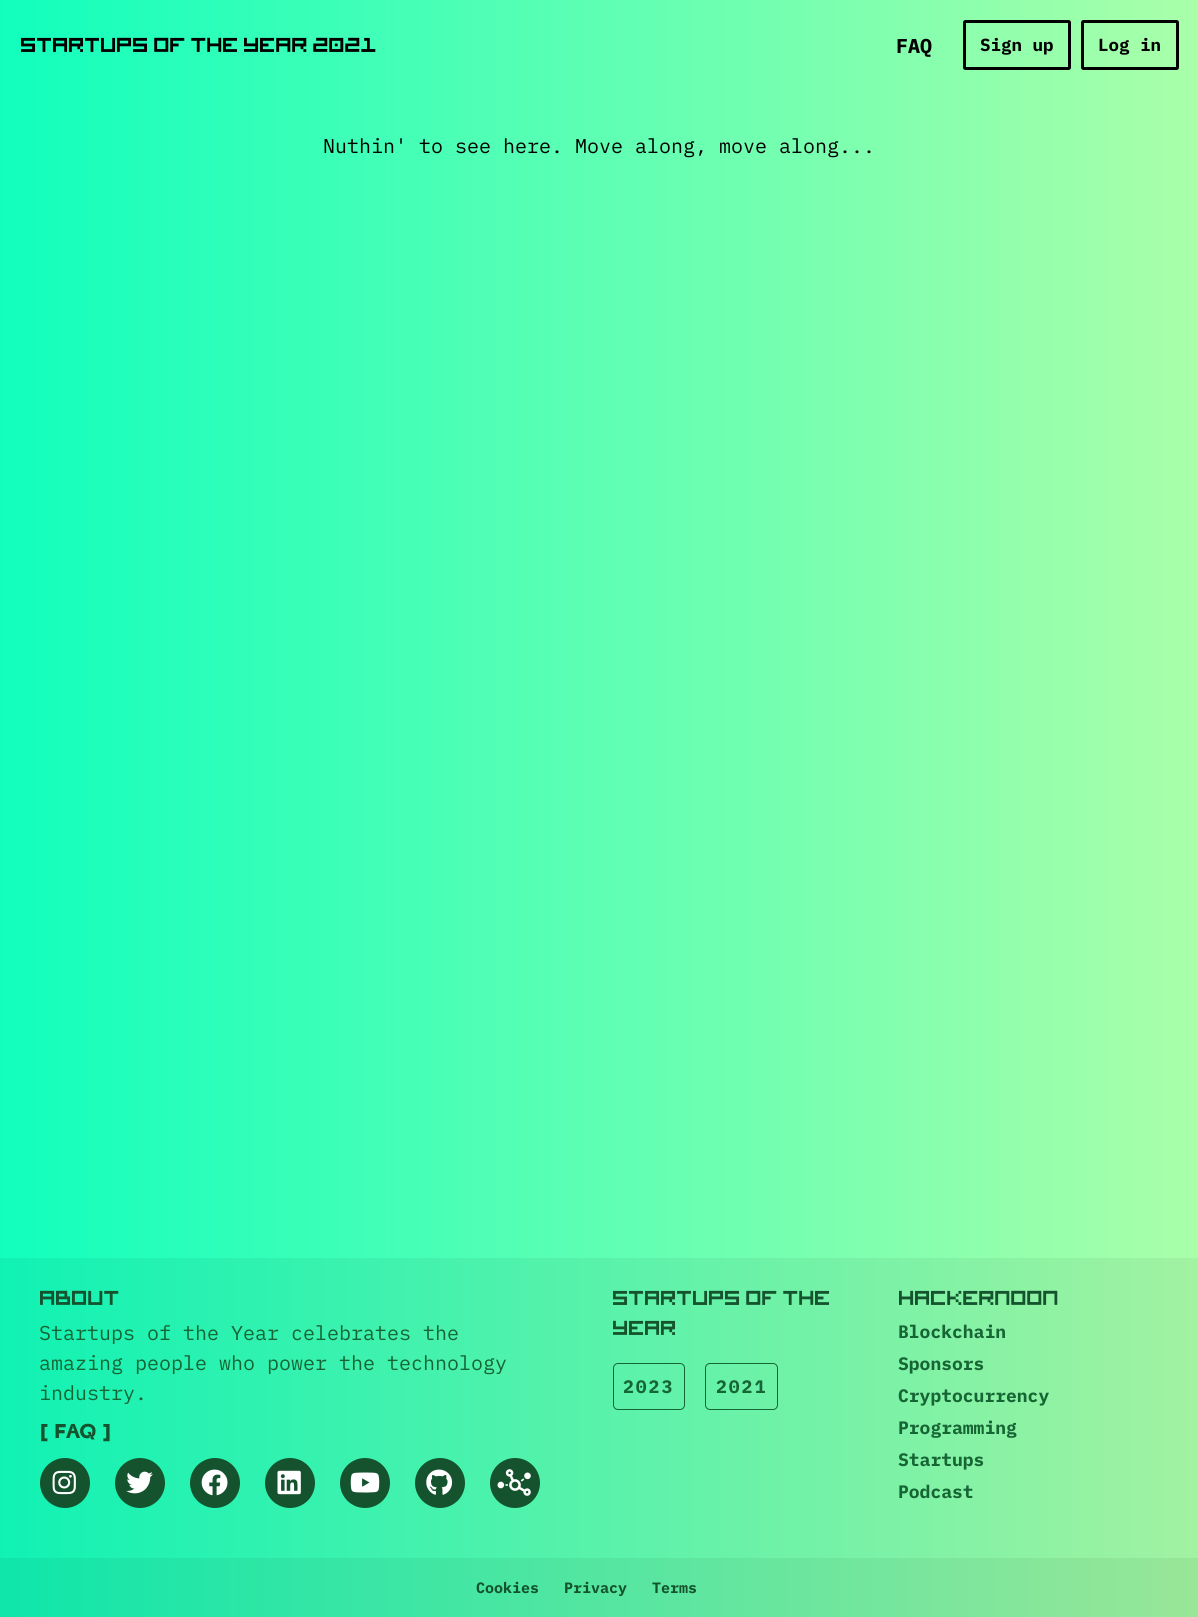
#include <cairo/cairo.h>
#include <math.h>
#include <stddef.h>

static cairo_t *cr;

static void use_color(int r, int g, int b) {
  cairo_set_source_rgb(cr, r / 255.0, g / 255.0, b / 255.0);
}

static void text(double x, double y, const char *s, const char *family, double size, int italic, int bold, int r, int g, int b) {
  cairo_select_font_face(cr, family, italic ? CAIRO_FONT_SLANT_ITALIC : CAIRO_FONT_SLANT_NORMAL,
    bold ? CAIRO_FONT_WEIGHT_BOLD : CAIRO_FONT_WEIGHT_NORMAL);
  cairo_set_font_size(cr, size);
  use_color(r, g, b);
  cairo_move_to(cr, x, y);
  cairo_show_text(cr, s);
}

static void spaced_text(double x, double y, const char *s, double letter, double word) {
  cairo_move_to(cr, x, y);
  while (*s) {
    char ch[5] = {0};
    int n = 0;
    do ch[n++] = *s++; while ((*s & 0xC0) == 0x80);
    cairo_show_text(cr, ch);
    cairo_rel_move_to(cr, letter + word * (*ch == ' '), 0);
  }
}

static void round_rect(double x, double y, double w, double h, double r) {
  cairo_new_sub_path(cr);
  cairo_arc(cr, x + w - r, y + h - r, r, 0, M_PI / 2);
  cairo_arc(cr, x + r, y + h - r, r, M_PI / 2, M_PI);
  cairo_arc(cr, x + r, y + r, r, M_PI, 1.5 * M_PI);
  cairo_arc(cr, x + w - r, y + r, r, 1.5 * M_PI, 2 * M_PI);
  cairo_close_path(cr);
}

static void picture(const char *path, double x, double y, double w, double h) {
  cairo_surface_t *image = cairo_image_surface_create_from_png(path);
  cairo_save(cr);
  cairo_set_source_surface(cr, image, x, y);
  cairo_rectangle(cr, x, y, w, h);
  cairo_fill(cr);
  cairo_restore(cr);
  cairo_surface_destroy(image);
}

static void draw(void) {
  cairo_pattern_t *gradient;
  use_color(255, 255, 255);
  cairo_paint(cr);
  gradient = cairo_pattern_create_linear(0, 809, 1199, 809);
  cairo_pattern_add_color_stop_rgba(gradient, 0, 0.067, 1, 0.741, 1);
  cairo_pattern_add_color_stop_rgba(gradient, 1, 0.667, 1, 0.663, 1);
  cairo_set_source(cr, gradient);
  cairo_pattern_destroy(gradient);
  cairo_rectangle(cr, 0, 0, 1198, 1258);
  cairo_fill(cr);
  gradient = cairo_pattern_create_linear(0, 809, 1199, 809);
  cairo_pattern_add_color_stop_rgba(gradient, 0, 0.059, 0.902, 0.667, 1);
  cairo_pattern_add_color_stop_rgba(gradient, 1, 0.6, 0.902, 0.596, 1);
  cairo_set_source(cr, gradient);
  cairo_pattern_destroy(gradient);
  cairo_rectangle(cr, 0, 1558, 1198, 59);
  cairo_fill(cr);
  gradient = cairo_pattern_create_linear(0, 809, 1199, 809);
  cairo_pattern_add_color_stop_rgba(gradient, 0, 0.063, 0.949, 0.706, 1);
  cairo_pattern_add_color_stop_rgba(gradient, 1, 0.635, 0.949, 0.631, 1);
  cairo_set_source(cr, gradient);
  cairo_pattern_destroy(gradient);
  cairo_rectangle(cr, 0, 1258, 1198, 300);
  cairo_fill(cr);
  round_rect(964.5, 21.5, 105, 47, 1);
  use_color(0, 0, 0);
  cairo_set_line_width(cr, 3);
  cairo_stroke(cr);
  round_rect(1082.5, 21.5, 95, 47, 1);
  cairo_stroke(cr);
  use_color(20, 83, 45);
  cairo_arc(cr, 65, 1483, 25, 0, 2 * M_PI);
  cairo_fill(cr);
  picture("img_01.png", 52, 1470, 24, 25);
  cairo_arc(cr, 140, 1483, 25, 0, 2 * M_PI);
  cairo_fill(cr);
  picture("img_02.png", 126, 1471, 27, 23);
  cairo_arc(cr, 215, 1483, 25, 0, 2 * M_PI);
  cairo_fill(cr);
  picture("img_03.png", 201, 1469, 27, 27);
  cairo_arc(cr, 290, 1483, 25, 0, 2 * M_PI);
  cairo_fill(cr);
  picture("img_04.png", 277, 1470, 24, 25);
  cairo_arc(cr, 365, 1483, 25, 0, 2 * M_PI);
  cairo_fill(cr);
  picture("img_05.png", 350, 1472, 30, 21);
  cairo_arc(cr, 440, 1483, 25, 0, 2 * M_PI);
  cairo_fill(cr);
  picture("img_06.png", 426, 1469, 27, 26);
  cairo_arc(cr, 515, 1483, 25, 0, 2 * M_PI);
  cairo_fill(cr);
  picture("img_07.png", 497, 1469, 34, 27);
  round_rect(613.5, 1363.5, 71, 46, 4.5);
  use_color(22, 101, 52);
  cairo_set_line_width(cr, 1);
  cairo_stroke(cr);
  round_rect(705.5, 1363.5, 72, 46, 4.5);
  cairo_stroke(cr);
  text(20, 50, "Startups of the Year 2021", "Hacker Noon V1", 20, 0, 0, 0, 0, 0);
  text(896, 53, "FAQ", "IBM Plex Mono", 20, 0, 1, 0, 0, 0);
  text(980, 51, "Sign up", "IBM Plex Mono", 17.5, 0, 1, 0, 0, 0);
  text(1098, 51, "Log in", "IBM Plex Mono", 17.5, 0, 1, 0, 0, 0);
  text(323, 153, "Nuthin' to see here. Move along, move along...", "IBM Plex Mono", 20, 0, 0, 0, 0, 0);
  text(39, 1303, "About", "Hacker Noon V1", 20, 0, 0, 20, 83, 45);
  text(39, 1340, "Startups of the Year celebrates the", "IBM Plex Mono", 20, 0, 0, 22, 101, 52);
  text(39, 1370, "amazing people who power the technology", "IBM Plex Mono", 20, 0, 0, 22, 101, 52);
  text(39, 1400, "industry.", "IBM Plex Mono", 20, 0, 0, 22, 101, 52);
  text(39, 1438, "[ FAQ ]", "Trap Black", 20, 0, 0, 20, 83, 45);
  text(612, 1303, "Startups of the", "Hacker Noon V1", 20, 0, 0, 20, 83, 45);
  text(612, 1333, "Year", "Hacker Noon V1", 20, 0, 0, 20, 83, 45);
  cairo_select_font_face(cr, "IBM Plex Mono", CAIRO_FONT_SLANT_NORMAL, CAIRO_FONT_WEIGHT_BOLD);
  cairo_set_font_size(cr, 18);
  use_color(22, 101, 52);
  spaced_text(623, 1393, "2023", 2, 0);
  spaced_text(716, 1393, "2021", 2, 0);
  text(898, 1303, "HackerNoon", "Hacker Noon V1", 20, 0, 0, 20, 83, 45);
  text(898, 1338, "Blockchain", "IBM Plex Mono", 18, 0, 1, 22, 101, 52);
  text(898, 1370, "Sponsors", "IBM Plex Mono", 18, 0, 1, 22, 101, 52);
  text(898, 1402, "Cryptocurrency", "IBM Plex Mono", 18, 0, 1, 22, 101, 52);
  text(898, 1434, "Programming", "IBM Plex Mono", 18, 0, 1, 22, 101, 52);
  text(898, 1466, "Startups", "IBM Plex Mono", 18, 0, 1, 22, 101, 52);
  text(898, 1498, "Podcast", "IBM Plex Mono", 18, 0, 1, 22, 101, 52);
  text(476, 1593, "Cookies", "IBM Plex Mono", 15, 0, 1, 20, 83, 45);
  text(564, 1593, "Privacy", "IBM Plex Mono", 15, 0, 1, 20, 83, 45);
  text(652, 1593, "Terms", "IBM Plex Mono", 15, 0, 1, 20, 83, 45);
}

int main(void) {
  cairo_surface_t *surface = cairo_image_surface_create(CAIRO_FORMAT_RGB24, 1198, 1617);
  cr = cairo_create(surface);
  cairo_font_options_t *options = cairo_font_options_create();
  cairo_font_options_set_hint_metrics(options, CAIRO_HINT_METRICS_OFF);
  cairo_font_options_set_hint_style(options, CAIRO_HINT_STYLE_NONE);
  cairo_set_font_options(cr, options);
  cairo_set_miter_limit(cr, 4);
  draw();
  cairo_surface_write_to_png(surface, "out.png");
  cairo_font_options_destroy(options);
  cairo_destroy(cr);
  cairo_surface_destroy(surface);
  return 0;
}
